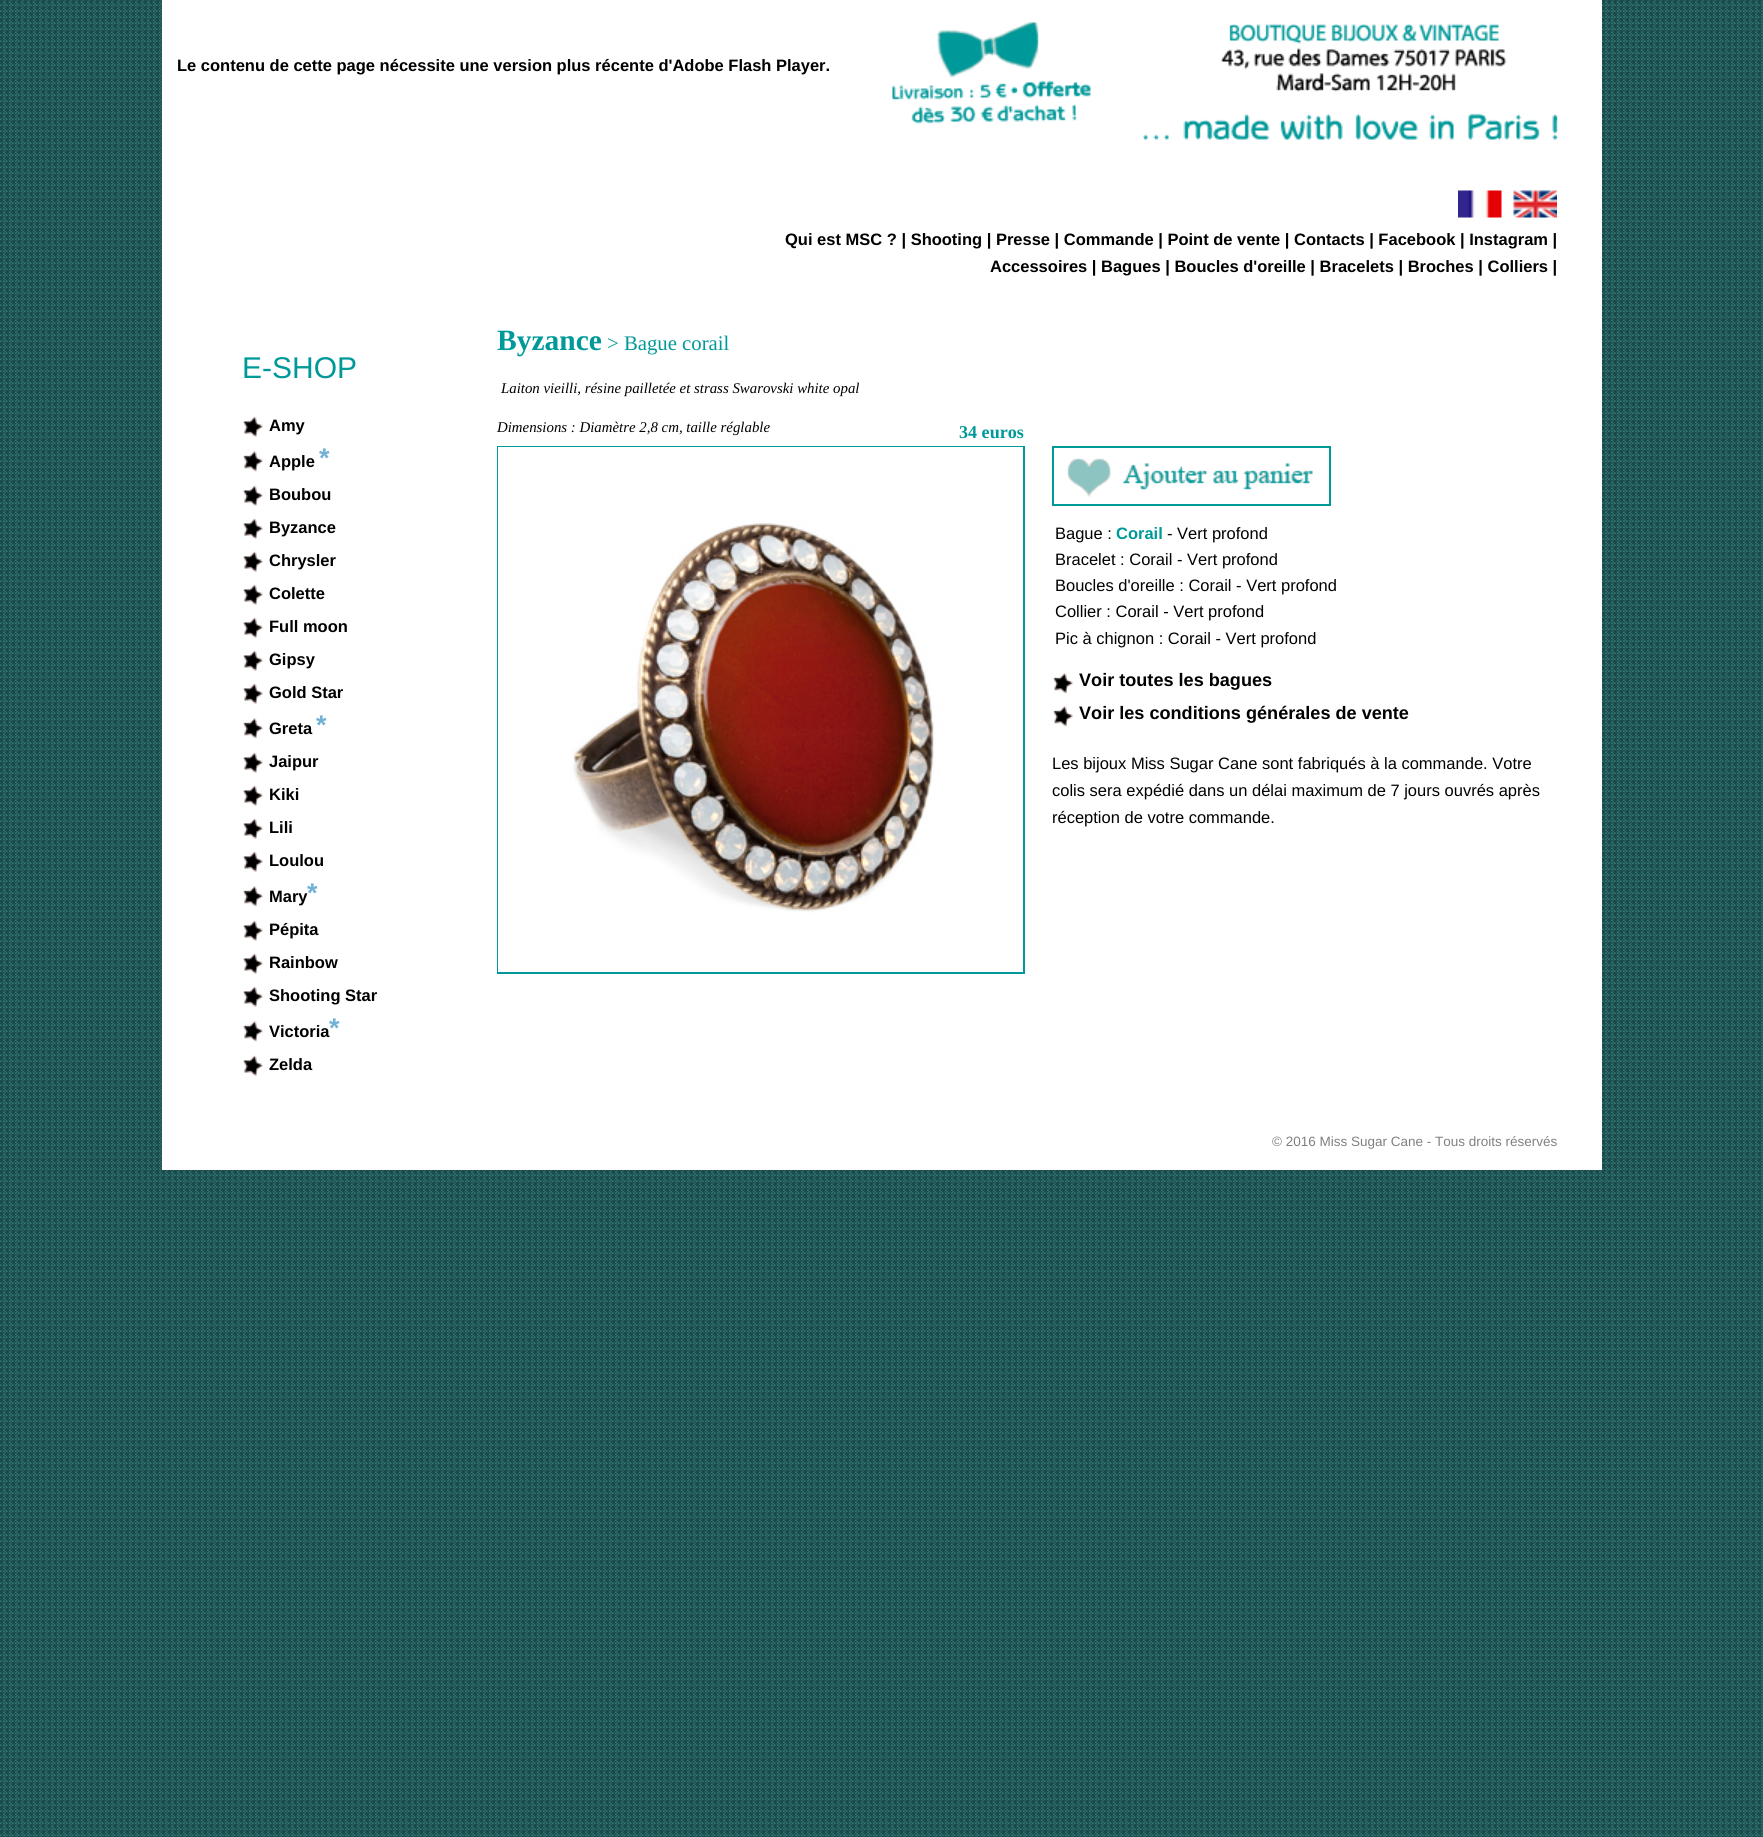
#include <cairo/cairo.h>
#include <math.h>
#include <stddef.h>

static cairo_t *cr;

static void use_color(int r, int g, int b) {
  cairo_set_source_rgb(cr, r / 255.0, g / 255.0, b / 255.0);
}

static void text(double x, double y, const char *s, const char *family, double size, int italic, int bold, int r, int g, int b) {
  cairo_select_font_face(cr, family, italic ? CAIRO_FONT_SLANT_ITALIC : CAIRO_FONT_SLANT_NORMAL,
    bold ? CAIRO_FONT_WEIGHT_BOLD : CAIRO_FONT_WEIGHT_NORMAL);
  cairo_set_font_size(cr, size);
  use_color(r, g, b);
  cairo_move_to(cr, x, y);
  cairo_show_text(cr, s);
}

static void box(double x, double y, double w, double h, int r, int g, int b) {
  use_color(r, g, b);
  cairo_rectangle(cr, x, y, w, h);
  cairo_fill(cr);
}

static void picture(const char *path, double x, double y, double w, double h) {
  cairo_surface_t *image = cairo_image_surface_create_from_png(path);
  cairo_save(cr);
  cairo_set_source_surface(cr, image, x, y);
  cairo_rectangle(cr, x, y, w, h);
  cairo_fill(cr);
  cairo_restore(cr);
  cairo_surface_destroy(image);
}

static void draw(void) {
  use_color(255, 255, 255);
  cairo_paint(cr);
  picture("img_01.png", 0, 0, 1763, 1837);
  box(162, 0, 1440, 1170, 255, 255, 255);
  picture("img_02.png", 892, 22, 666, 118);
  picture("img_03.png", 1458, 190, 44, 28);
  picture("img_04.png", 1513, 190, 44, 28);
  picture("img_05.png", 242, 416, 21, 21);
  picture("img_06.png", 242, 451, 21, 21);
  picture("img_05.png", 242, 485, 21, 21);
  picture("img_05.png", 242, 518, 21, 21);
  picture("img_05.png", 242, 551, 21, 21);
  picture("img_05.png", 242, 584, 21, 21);
  picture("img_05.png", 242, 617, 21, 21);
  picture("img_05.png", 242, 650, 21, 21);
  picture("img_05.png", 242, 683, 21, 21);
  picture("img_06.png", 242, 718, 21, 21);
  picture("img_05.png", 242, 752, 21, 21);
  picture("img_05.png", 242, 785, 21, 21);
  picture("img_05.png", 242, 818, 21, 21);
  picture("img_05.png", 242, 851, 21, 21);
  picture("img_06.png", 242, 886, 21, 21);
  picture("img_05.png", 242, 920, 21, 21);
  picture("img_05.png", 242, 953, 21, 21);
  picture("img_05.png", 242, 986, 21, 21);
  picture("img_06.png", 242, 1021, 21, 21);
  picture("img_05.png", 242, 1055, 21, 21);
  cairo_rectangle(cr, 498, 447, 526, 526);
  use_color(0, 153, 153);
  cairo_stroke(cr);
  picture("img_07.png", 498, 447, 525, 525);
  cairo_rectangle(cr, 1053, 447, 277, 58);
  cairo_stroke(cr);
  picture("img_08.png", 1067, 458, 246, 39);
  picture("img_09.png", 1052, 673, 21, 21);
  picture("img_09.png", 1052, 706, 21, 21);
  text(177, 71, "Le contenu de cette page nécessite une version plus récente d'Adobe Flash Player.", "Liberation Sans", 16.5, 0, 1, 0, 0, 0);
  text(785, 245, "Qui est MSC ? | Shooting | Presse | Commande | Point de vente | Contacts | Facebook | Instagram |", "Liberation Sans", 16.5, 0, 1, 0, 0, 0);
  text(990, 272, "Accessoires | Bagues | Boucles d'oreille | Bracelets | Broches | Colliers |", "Liberation Sans", 16.5, 0, 1, 0, 0, 0);
  text(242, 378, "E-SHOP", "Liberation Sans", 30, 0, 0, 0, 153, 153);
  text(269, 431, "Amy", "Liberation Sans", 16.5, 0, 1, 0, 0, 0);
  text(319, 467, "*", "Liberation Sans", 27, 0, 1, 113, 177, 212);
  text(269, 467, "Apple", "Liberation Sans", 16.5, 0, 1, 0, 0, 0);
  text(269, 500, "Boubou", "Liberation Sans", 16.5, 0, 1, 0, 0, 0);
  text(269, 533, "Byzance", "Liberation Sans", 16.5, 0, 1, 0, 0, 0);
  text(269, 566, "Chrysler", "Liberation Sans", 16.5, 0, 1, 0, 0, 0);
  text(269, 599, "Colette", "Liberation Sans", 16.5, 0, 1, 0, 0, 0);
  text(269, 632, "Full moon", "Liberation Sans", 16.5, 0, 1, 0, 0, 0);
  text(269, 665, "Gipsy", "Liberation Sans", 16.5, 0, 1, 0, 0, 0);
  text(269, 698, "Gold Star", "Liberation Sans", 16.5, 0, 1, 0, 0, 0);
  text(316, 734, "*", "Liberation Sans", 27, 0, 1, 113, 177, 212);
  text(269, 734, "Greta", "Liberation Sans", 16.5, 0, 1, 0, 0, 0);
  text(269, 767, "Jaipur", "Liberation Sans", 16.5, 0, 1, 0, 0, 0);
  text(269, 800, "Kiki", "Liberation Sans", 16.5, 0, 1, 0, 0, 0);
  text(269, 833, "Lili", "Liberation Sans", 16.5, 0, 1, 0, 0, 0);
  text(269, 866, "Loulou", "Liberation Sans", 16.5, 0, 1, 0, 0, 0);
  text(307, 902, "*", "Liberation Sans", 27, 0, 1, 113, 177, 212);
  text(269, 902, "Mary", "Liberation Sans", 16.5, 0, 1, 0, 0, 0);
  text(269, 935, "Pépita", "Liberation Sans", 16.5, 0, 1, 0, 0, 0);
  text(269, 968, "Rainbow", "Liberation Sans", 16.5, 0, 1, 0, 0, 0);
  text(269, 1001, "Shooting Star", "Liberation Sans", 16.5, 0, 1, 0, 0, 0);
  text(329, 1037, "*", "Liberation Sans", 27, 0, 1, 113, 177, 212);
  text(269, 1037, "Victoria", "Liberation Sans", 16.5, 0, 1, 0, 0, 0);
  text(269, 1070, "Zelda", "Liberation Sans", 16.5, 0, 1, 0, 0, 0);
  text(497, 350, "Byzance", "Liberation Serif", 29.5, 0, 1, 0, 153, 153);
  text(607, 350, "> Bague corail", "Liberation Serif", 20.75, 0, 0, 0, 153, 153);
  text(501, 393, "Laiton vieilli, résine pailletée et strass Swarovski white opal", "Liberation Serif", 14.85, 1, 0, 0, 0, 0);
  text(497, 432, "Dimensions : Diamètre 2,8 cm, taille réglable", "Liberation Serif", 14.85, 1, 0, 0, 0, 0);
  text(959, 438, "34 euros", "Liberation Serif", 18.1, 0, 1, 0, 153, 153);
  text(1055, 539, "Bague :", "Liberation Sans", 16.5, 0, 0, 0, 0, 0);
  text(1116, 539, "Corail", "Liberation Sans", 16.5, 0, 1, 0, 153, 153);
  text(1167, 539, "- Vert profond", "Liberation Sans", 16.5, 0, 0, 0, 0, 0);
  text(1055, 565, "Bracelet : Corail - Vert profond", "Liberation Sans", 16.5, 0, 0, 0, 0, 0);
  text(1055, 591, "Boucles d'oreille : Corail - Vert profond", "Liberation Sans", 16.5, 0, 0, 0, 0, 0);
  text(1055, 617, "Collier : Corail - Vert profond", "Liberation Sans", 16.5, 0, 0, 0, 0, 0);
  text(1055, 644, "Pic à chignon : Corail - Vert profond", "Liberation Sans", 16.5, 0, 0, 0, 0, 0);
  text(1079, 686, "Voir toutes les bagues", "Liberation Sans", 18.1, 0, 1, 0, 0, 0);
  text(1079, 719, "Voir les conditions générales de vente", "Liberation Sans", 18.1, 0, 1, 0, 0, 0);
  text(1052, 769, "Les bijoux Miss Sugar Cane sont fabriqués à la commande. Votre", "Liberation Sans", 16.5, 0, 0, 0, 0, 0);
  text(1052, 796, "colis sera expédié dans un délai maximum de 7 jours ouvrés après", "Liberation Sans", 16.5, 0, 0, 0, 0, 0);
  text(1052, 823, "réception de votre commande.", "Liberation Sans", 16.5, 0, 0, 0, 0, 0);
  text(1272, 1146, "© 2016 Miss Sugar Cane - Tous droits réservés", "Liberation Sans", 13.5, 0, 0, 128, 128, 128);
}

int main(void) {
  cairo_surface_t *surface = cairo_image_surface_create(CAIRO_FORMAT_RGB24, 1763, 1837);
  cr = cairo_create(surface);
  cairo_font_options_t *options = cairo_font_options_create();
  cairo_font_options_set_hint_metrics(options, CAIRO_HINT_METRICS_OFF);
  cairo_font_options_set_hint_style(options, CAIRO_HINT_STYLE_NONE);
  cairo_set_font_options(cr, options);
  cairo_set_miter_limit(cr, 4);
  draw();
  cairo_surface_write_to_png(surface, "out.png");
  cairo_font_options_destroy(options);
  cairo_destroy(cr);
  cairo_surface_destroy(surface);
  return 0;
}
